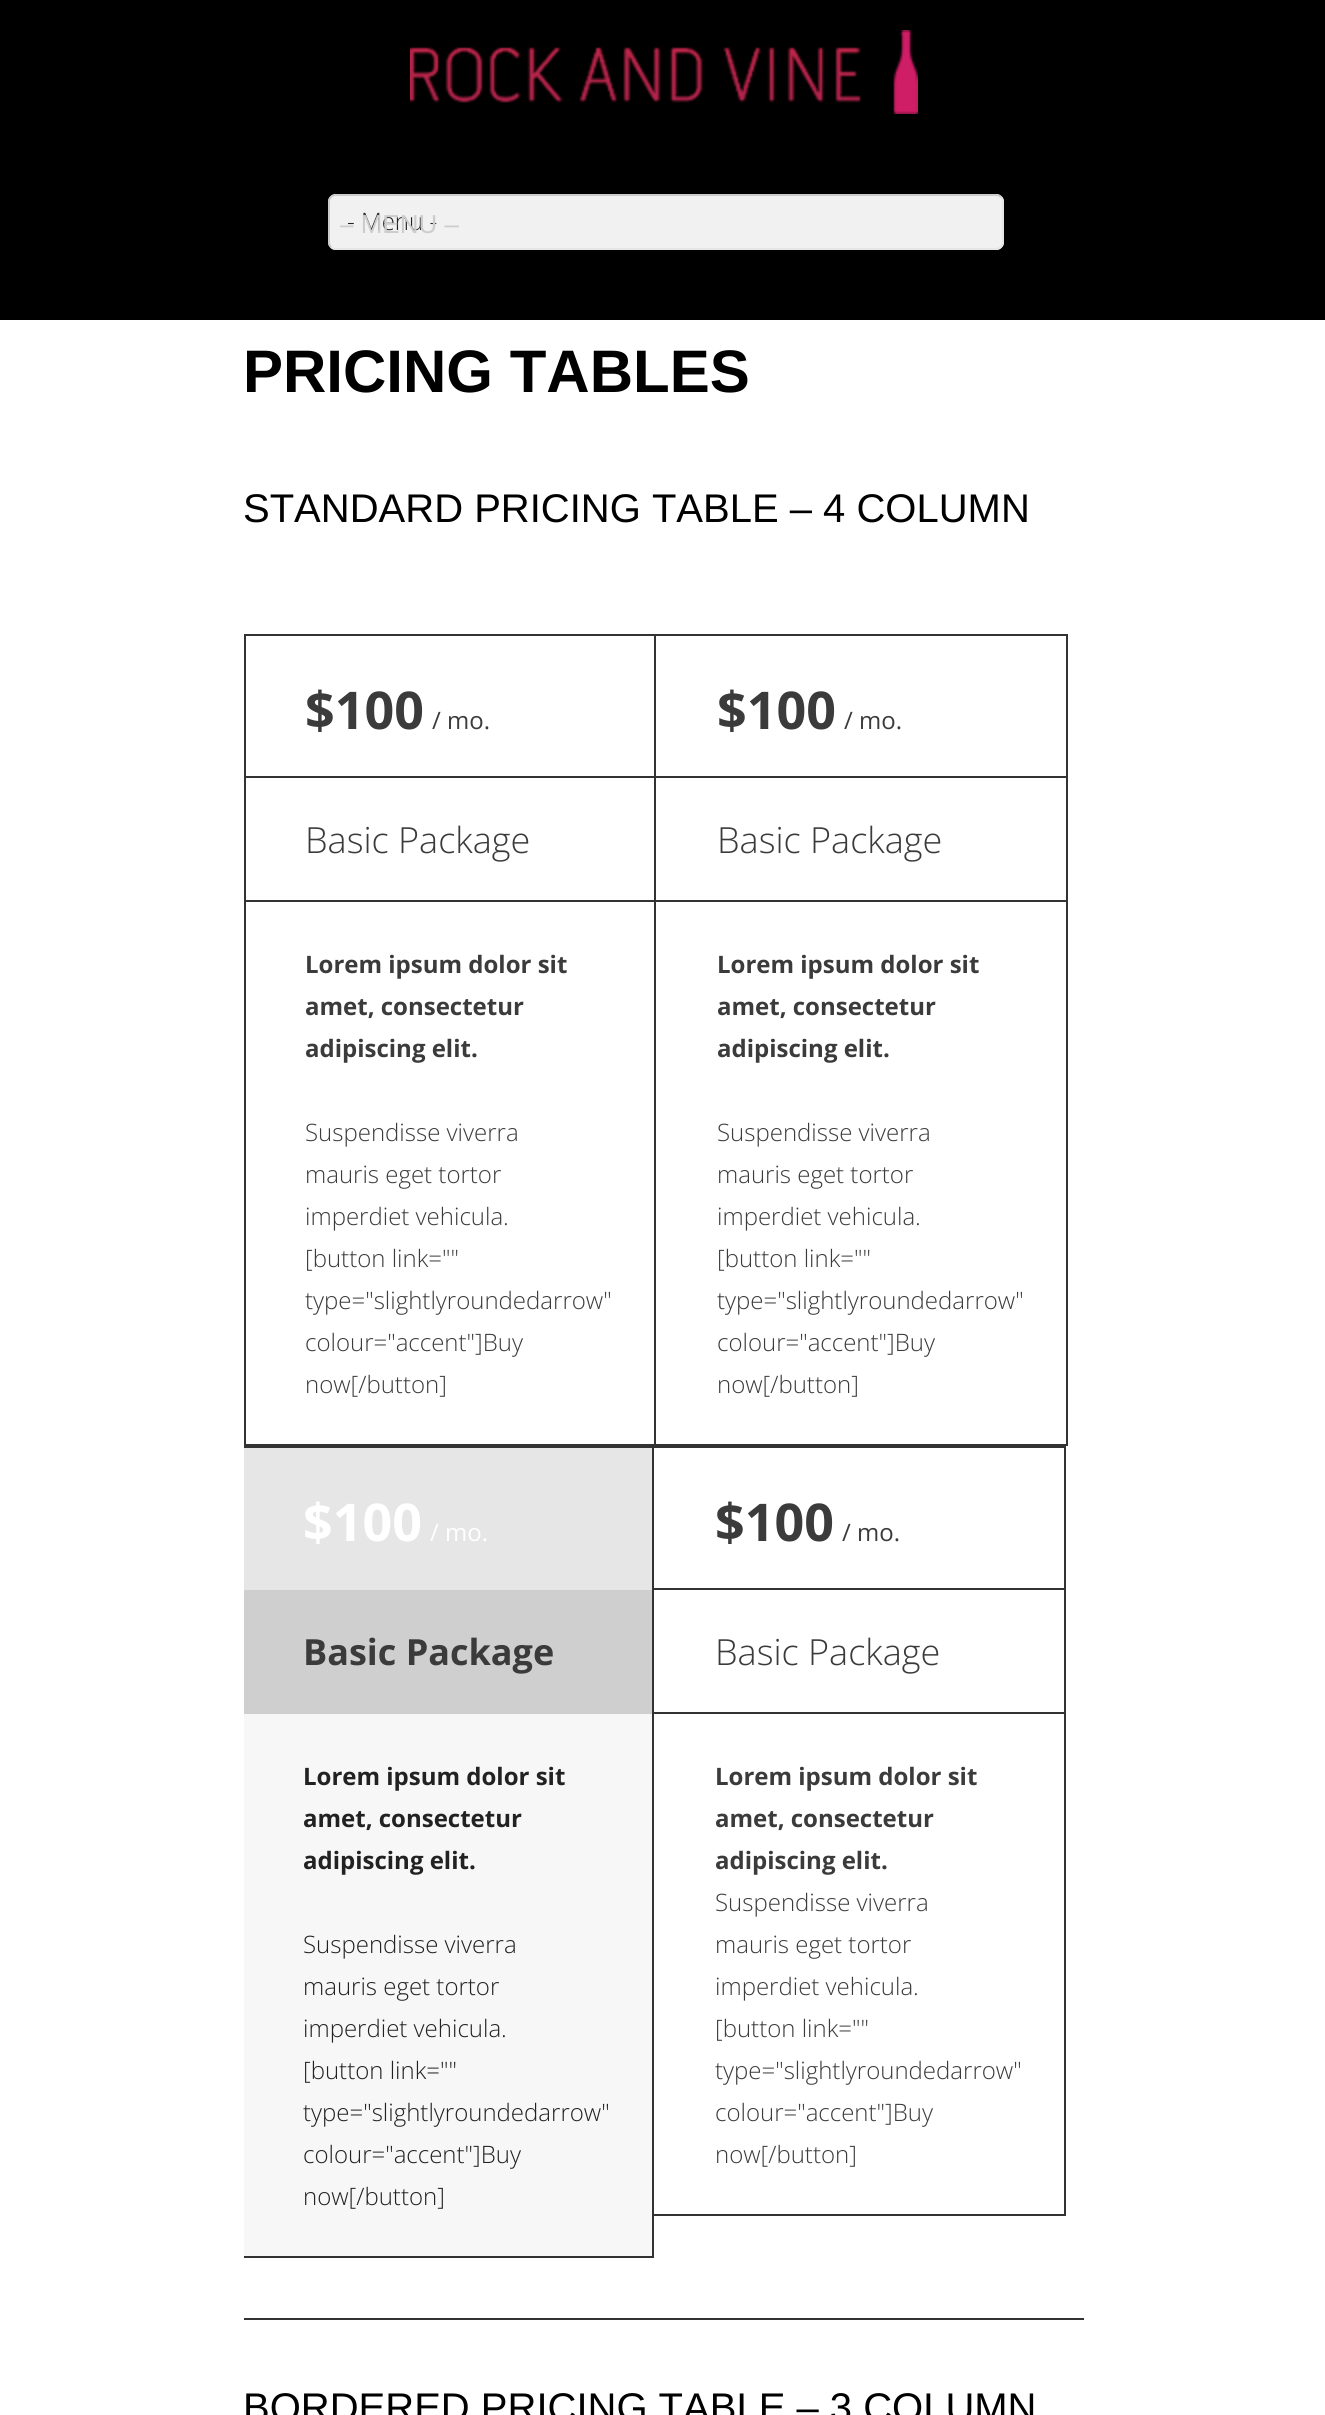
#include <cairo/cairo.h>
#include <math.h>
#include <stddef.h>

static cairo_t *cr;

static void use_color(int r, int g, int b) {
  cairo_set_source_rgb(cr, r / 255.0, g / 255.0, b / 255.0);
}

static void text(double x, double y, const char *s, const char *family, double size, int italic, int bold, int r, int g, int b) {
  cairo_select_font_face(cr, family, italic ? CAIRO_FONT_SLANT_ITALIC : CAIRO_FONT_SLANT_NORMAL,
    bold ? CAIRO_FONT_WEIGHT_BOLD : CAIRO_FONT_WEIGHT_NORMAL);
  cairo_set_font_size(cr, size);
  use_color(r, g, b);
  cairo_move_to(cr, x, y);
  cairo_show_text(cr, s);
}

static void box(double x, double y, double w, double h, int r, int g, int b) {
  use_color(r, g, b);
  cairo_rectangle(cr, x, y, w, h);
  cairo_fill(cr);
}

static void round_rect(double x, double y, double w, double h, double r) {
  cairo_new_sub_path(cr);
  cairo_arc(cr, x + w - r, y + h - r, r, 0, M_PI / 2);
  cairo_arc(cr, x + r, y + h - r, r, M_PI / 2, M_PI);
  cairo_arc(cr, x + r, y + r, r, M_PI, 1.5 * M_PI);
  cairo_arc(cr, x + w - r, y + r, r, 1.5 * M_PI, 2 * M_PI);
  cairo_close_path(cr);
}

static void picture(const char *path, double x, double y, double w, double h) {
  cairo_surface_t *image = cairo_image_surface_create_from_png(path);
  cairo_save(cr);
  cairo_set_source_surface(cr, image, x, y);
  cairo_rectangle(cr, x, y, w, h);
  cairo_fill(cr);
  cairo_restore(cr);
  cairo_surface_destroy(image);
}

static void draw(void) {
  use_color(255, 255, 255);
  cairo_paint(cr);
  box(0, 0, 1325, 320, 0, 0, 0);
  picture("img_01.png", 410, 30, 508, 84);
  use_color(241, 241, 241);
  round_rect(328, 194, 676, 56, 8);
  cairo_fill(cr);
  cairo_new_path(cr);
  cairo_move_to(cr, 1001, 197);
  cairo_curve_to(cr, 1002.5, 198.5, 1003, 200, 1003, 202);
  cairo_line_to(cr, 1003, 242);
  cairo_curve_to(cr, 1003, 244, 1002.5, 245.5, 1001, 247);
  cairo_curve_to(cr, 999.5, 248.5, 998, 249, 996, 249);
  cairo_line_to(cr, 336, 249);
  cairo_curve_to(cr, 334, 249, 332.5, 248.5, 331, 247);
  use_color(230, 230, 230);
  cairo_stroke(cr);
  cairo_new_path(cr);
  cairo_move_to(cr, 331, 247);
  cairo_curve_to(cr, 329.5, 245.5, 329, 244, 329, 242);
  cairo_line_to(cr, 329, 202);
  cairo_curve_to(cr, 329, 200, 329.5, 198.5, 331, 197);
  cairo_curve_to(cr, 332.5, 195.5, 334, 195, 336, 195);
  cairo_line_to(cr, 996, 195);
  cairo_curve_to(cr, 998, 195, 999.5, 195.5, 1001, 197);
  use_color(204, 204, 204);
  cairo_stroke(cr);
  cairo_rectangle(cr, 245, 635, 410, 810);
  use_color(51, 51, 51);
  cairo_stroke(cr);
  box(246, 776, 408, 2, 51, 51, 51);
  box(246, 900, 408, 2, 51, 51, 51);
  box(656, 634, 412, 2, 51, 51, 51);
  box(1066, 634, 2, 812, 51, 51, 51);
  box(656, 1444, 412, 2, 51, 51, 51);
  box(656, 776, 410, 2, 51, 51, 51);
  box(656, 900, 410, 2, 51, 51, 51);
  box(244, 1446, 822, 2, 51, 51, 51);
  box(652, 1446, 2, 812, 51, 51, 51);
  box(244, 2256, 410, 2, 51, 51, 51);
  box(244, 1448, 408, 142, 230, 230, 230);
  box(244, 1590, 408, 124, 207, 207, 207);
  box(244, 1714, 408, 542, 247, 247, 247);
  box(1064, 1446, 2, 770, 51, 51, 51);
  box(654, 2214, 412, 2, 51, 51, 51);
  box(654, 1588, 410, 2, 51, 51, 51);
  box(654, 1712, 410, 2, 51, 51, 51);
  box(244, 2318, 840, 2, 51, 51, 51);
  text(347, 230, "- Menu -", "Open Sans Light", 24, 0, 0, 34, 34, 34);
  cairo_save(cr);
  cairo_rectangle(cr, 340, 208, 628, 34);
  cairo_clip(cr);
  text(339, 233, "– MENU –", "Liberation Sans", 26, 0, 0, 204, 204, 204);
  cairo_restore(cr);
  text(243, 392, "PRICING TABLES", "Liberation Sans", 60, 0, 1, 0, 0, 0);
  text(243, 522, "STANDARD PRICING TABLE – 4 COLUMN", "Liberation Sans", 40, 0, 0, 0, 0, 0);
  text(305, 729, "$100", "Open Sans", 52, 0, 1, 59, 59, 59);
  text(432, 729, "/ mo.", "Open Sans", 24, 0, 0, 59, 59, 59);
  text(305, 853, "Basic Package", "Open Sans Light", 36, 0, 0, 59, 59, 59);
  text(305, 973, "Lorem ipsum dolor sit", "Open Sans", 24, 0, 1, 59, 59, 59);
  text(305, 1015, "amet, consectetur", "Open Sans", 24, 0, 1, 59, 59, 59);
  text(305, 1057, "adipiscing elit.", "Open Sans", 24, 0, 1, 59, 59, 59);
  text(305, 1141, "Suspendisse viverra", "Open Sans Light", 24, 0, 0, 59, 59, 59);
  text(305, 1183, "mauris eget tortor", "Open Sans Light", 24, 0, 0, 59, 59, 59);
  text(305, 1225, "imperdiet vehicula.", "Open Sans Light", 24, 0, 0, 59, 59, 59);
  text(305, 1267, "[button link=\"\"", "Open Sans Light", 24, 0, 0, 59, 59, 59);
  text(305, 1309, "type=\"slightlyroundedarrow\"", "Open Sans Light", 24, 0, 0, 59, 59, 59);
  text(305, 1351, "colour=\"accent\"]Buy", "Open Sans Light", 24, 0, 0, 59, 59, 59);
  text(305, 1393, "now[/button]", "Open Sans Light", 24, 0, 0, 59, 59, 59);
  text(717, 729, "$100", "Open Sans", 52, 0, 1, 59, 59, 59);
  text(844, 729, "/ mo.", "Open Sans", 24, 0, 0, 59, 59, 59);
  text(717, 853, "Basic Package", "Open Sans Light", 36, 0, 0, 59, 59, 59);
  text(717, 973, "Lorem ipsum dolor sit", "Open Sans", 24, 0, 1, 59, 59, 59);
  text(717, 1015, "amet, consectetur", "Open Sans", 24, 0, 1, 59, 59, 59);
  text(717, 1057, "adipiscing elit.", "Open Sans", 24, 0, 1, 59, 59, 59);
  text(717, 1141, "Suspendisse viverra", "Open Sans Light", 24, 0, 0, 59, 59, 59);
  text(717, 1183, "mauris eget tortor", "Open Sans Light", 24, 0, 0, 59, 59, 59);
  text(717, 1225, "imperdiet vehicula.", "Open Sans Light", 24, 0, 0, 59, 59, 59);
  text(717, 1267, "[button link=\"\"", "Open Sans Light", 24, 0, 0, 59, 59, 59);
  text(717, 1309, "type=\"slightlyroundedarrow\"", "Open Sans Light", 24, 0, 0, 59, 59, 59);
  text(717, 1351, "colour=\"accent\"]Buy", "Open Sans Light", 24, 0, 0, 59, 59, 59);
  text(717, 1393, "now[/button]", "Open Sans Light", 24, 0, 0, 59, 59, 59);
  text(303, 1541, "$100", "Open Sans", 52, 0, 1, 255, 255, 255);
  text(430, 1541, "/ mo.", "Open Sans", 24, 0, 0, 255, 255, 255);
  text(303, 1665, "Basic Package", "Open Sans", 36, 0, 1, 59, 59, 59);
  text(303, 1785, "Lorem ipsum dolor sit", "Open Sans", 24, 0, 1, 34, 34, 34);
  text(303, 1827, "amet, consectetur", "Open Sans", 24, 0, 1, 34, 34, 34);
  text(303, 1869, "adipiscing elit.", "Open Sans", 24, 0, 1, 34, 34, 34);
  text(303, 1953, "Suspendisse viverra", "Open Sans Light", 24, 0, 0, 34, 34, 34);
  text(303, 1995, "mauris eget tortor", "Open Sans Light", 24, 0, 0, 34, 34, 34);
  text(303, 2037, "imperdiet vehicula.", "Open Sans Light", 24, 0, 0, 34, 34, 34);
  text(303, 2079, "[button link=\"\"", "Open Sans Light", 24, 0, 0, 34, 34, 34);
  text(303, 2121, "type=\"slightlyroundedarrow\"", "Open Sans Light", 24, 0, 0, 34, 34, 34);
  text(303, 2163, "colour=\"accent\"]Buy", "Open Sans Light", 24, 0, 0, 34, 34, 34);
  text(303, 2205, "now[/button]", "Open Sans Light", 24, 0, 0, 34, 34, 34);
  text(715, 1541, "$100", "Open Sans", 52, 0, 1, 59, 59, 59);
  text(842, 1541, "/ mo.", "Open Sans", 24, 0, 0, 59, 59, 59);
  text(715, 1665, "Basic Package", "Open Sans Light", 36, 0, 0, 59, 59, 59);
  text(715, 1785, "Lorem ipsum dolor sit", "Open Sans", 24, 0, 1, 59, 59, 59);
  text(715, 1827, "amet, consectetur", "Open Sans", 24, 0, 1, 59, 59, 59);
  text(715, 1869, "adipiscing elit.", "Open Sans", 24, 0, 1, 59, 59, 59);
  text(715, 1911, "Suspendisse viverra", "Open Sans Light", 24, 0, 0, 59, 59, 59);
  text(715, 1953, "mauris eget tortor", "Open Sans Light", 24, 0, 0, 59, 59, 59);
  text(715, 1995, "imperdiet vehicula.", "Open Sans Light", 24, 0, 0, 59, 59, 59);
  text(715, 2037, "[button link=\"\"", "Open Sans Light", 24, 0, 0, 59, 59, 59);
  text(715, 2079, "type=\"slightlyroundedarrow\"", "Open Sans Light", 24, 0, 0, 59, 59, 59);
  text(715, 2121, "colour=\"accent\"]Buy", "Open Sans Light", 24, 0, 0, 59, 59, 59);
  text(715, 2163, "now[/button]", "Open Sans Light", 24, 0, 0, 59, 59, 59);
  text(243, 2421, "BORDERED PRICING TABLE – 3 COLUMN", "Liberation Sans", 40, 0, 0, 0, 0, 0);
}

int main(void) {
  cairo_surface_t *surface = cairo_image_surface_create(CAIRO_FORMAT_RGB24, 1325, 2415);
  cr = cairo_create(surface);
  cairo_font_options_t *options = cairo_font_options_create();
  cairo_font_options_set_hint_metrics(options, CAIRO_HINT_METRICS_OFF);
  cairo_font_options_set_hint_style(options, CAIRO_HINT_STYLE_NONE);
  cairo_set_font_options(cr, options);
  cairo_set_miter_limit(cr, 4);
  draw();
  cairo_surface_write_to_png(surface, "out.png");
  cairo_font_options_destroy(options);
  cairo_destroy(cr);
  cairo_surface_destroy(surface);
  return 0;
}
